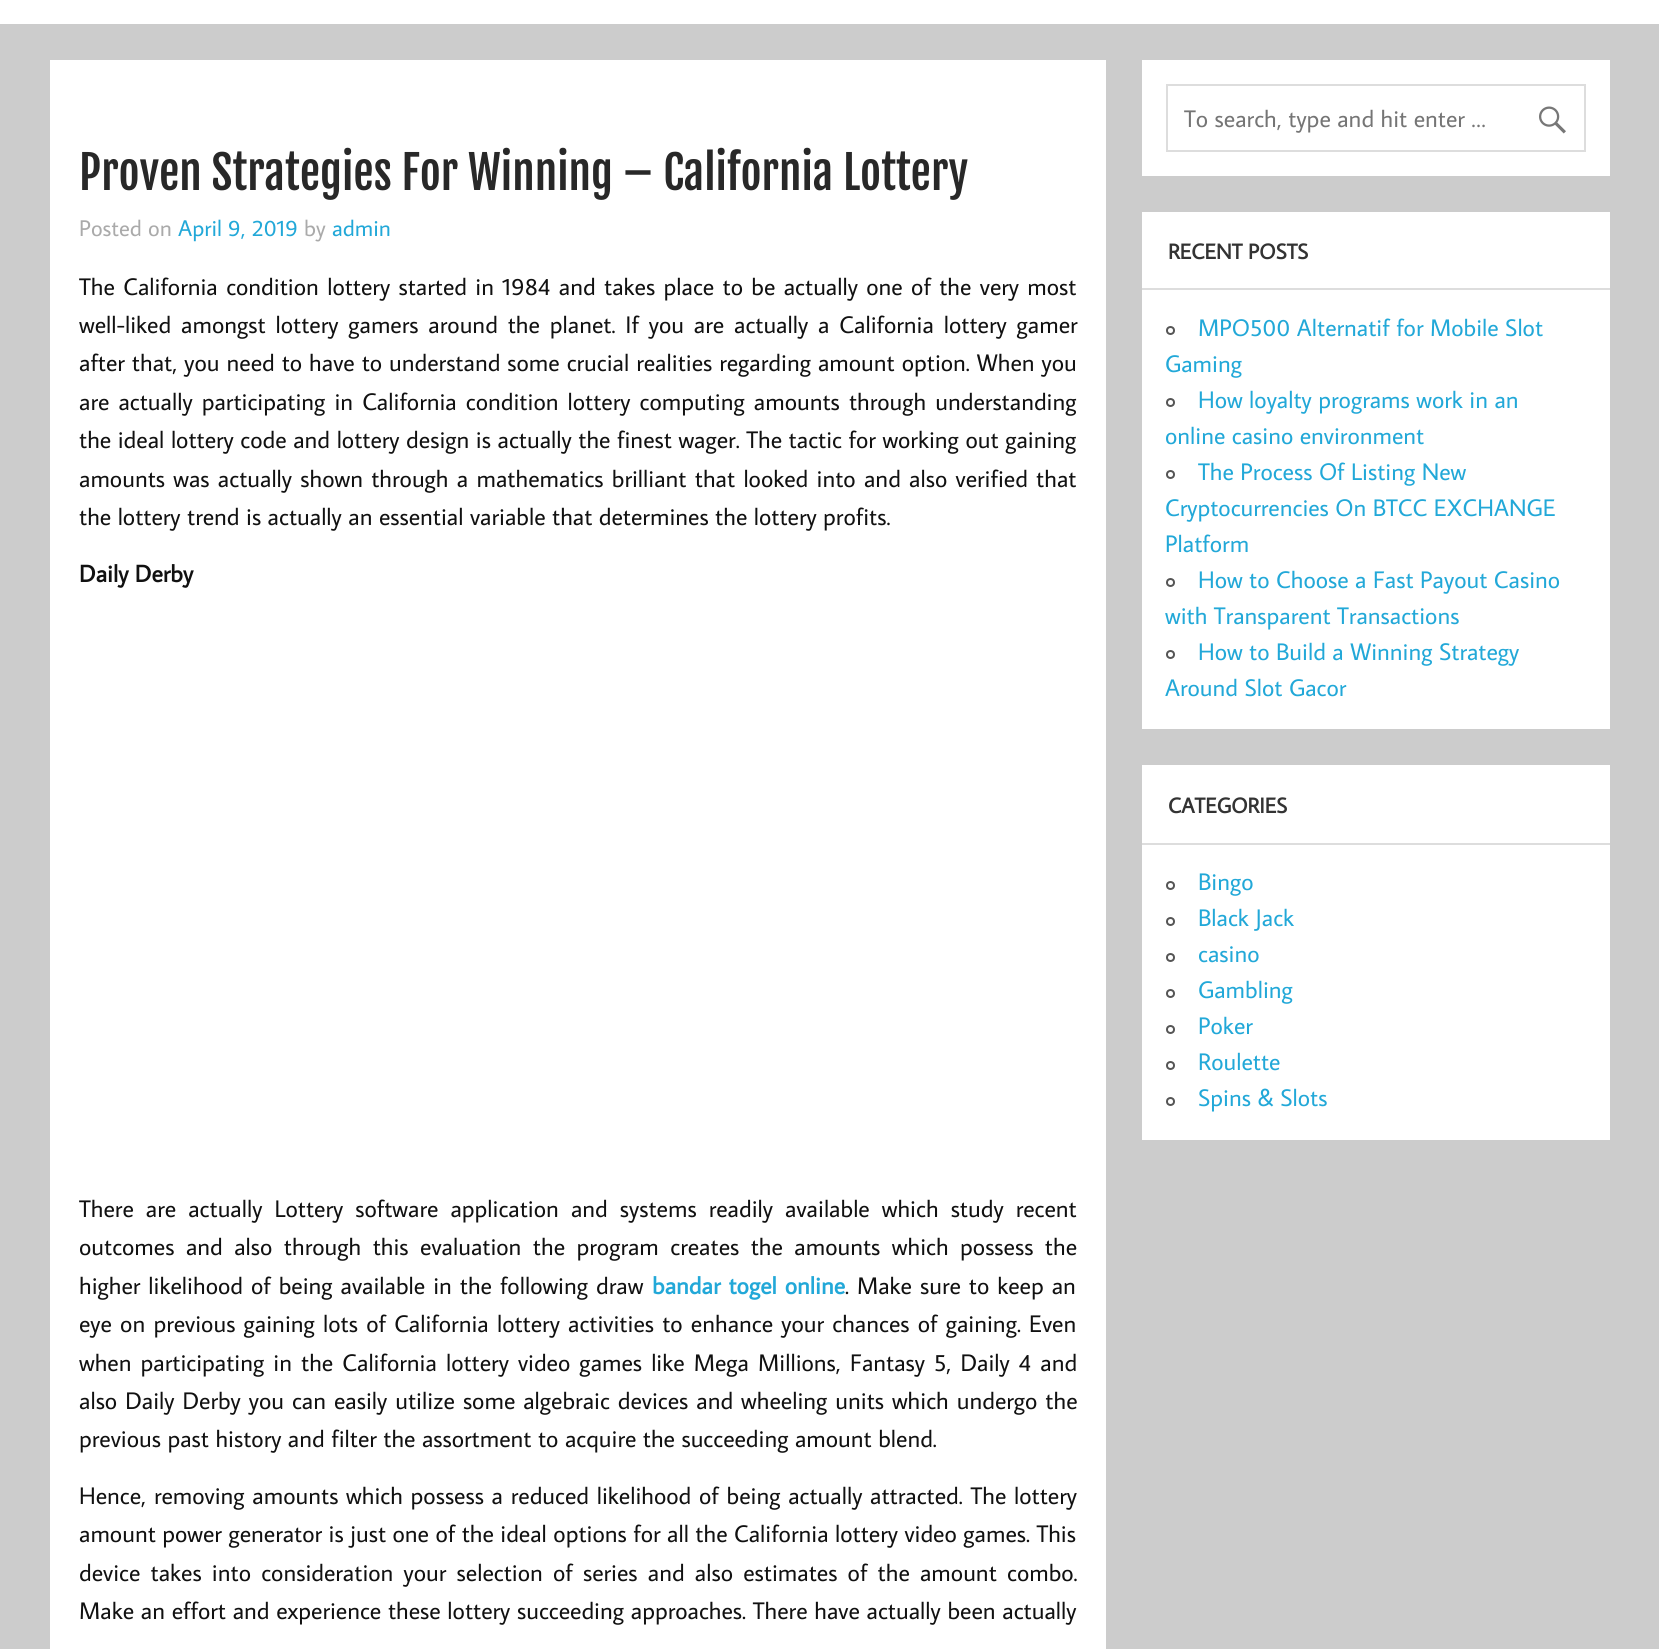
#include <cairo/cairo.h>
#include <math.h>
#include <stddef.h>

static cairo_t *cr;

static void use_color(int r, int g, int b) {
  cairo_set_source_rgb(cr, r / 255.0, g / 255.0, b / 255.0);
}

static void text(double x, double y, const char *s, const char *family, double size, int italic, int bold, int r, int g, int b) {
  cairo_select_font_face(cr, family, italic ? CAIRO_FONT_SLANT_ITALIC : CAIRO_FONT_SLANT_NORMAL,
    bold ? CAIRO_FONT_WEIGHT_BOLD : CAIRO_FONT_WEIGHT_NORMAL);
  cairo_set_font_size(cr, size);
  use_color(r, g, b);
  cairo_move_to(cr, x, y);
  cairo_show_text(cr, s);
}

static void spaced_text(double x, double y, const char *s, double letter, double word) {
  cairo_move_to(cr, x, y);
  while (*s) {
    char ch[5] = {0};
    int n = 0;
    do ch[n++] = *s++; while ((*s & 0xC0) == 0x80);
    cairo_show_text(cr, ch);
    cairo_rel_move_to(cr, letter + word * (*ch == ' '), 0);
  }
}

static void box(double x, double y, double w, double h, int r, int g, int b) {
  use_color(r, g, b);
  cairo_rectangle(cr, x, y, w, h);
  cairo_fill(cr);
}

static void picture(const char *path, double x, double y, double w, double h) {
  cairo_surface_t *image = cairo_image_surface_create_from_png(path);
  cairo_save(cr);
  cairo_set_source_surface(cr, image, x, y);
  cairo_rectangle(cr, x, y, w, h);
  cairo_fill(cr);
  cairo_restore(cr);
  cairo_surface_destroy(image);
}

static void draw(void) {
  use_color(204, 204, 204);
  cairo_paint(cr);
  box(0, 0, 1659, 24, 255, 255, 255);
  box(50, 60, 1056, 1589, 255, 255, 255);
  box(1142, 60, 468, 116, 255, 255, 255);
  cairo_rectangle(cr, 1167, 85, 418, 66);
  use_color(221, 221, 221);
  cairo_stroke(cr);
  picture("img_01.png", 1539, 106, 27, 28);
  box(1142, 212, 468, 517, 255, 255, 255);
  box(1142, 288, 468, 2, 221, 221, 221);
  cairo_arc(cr, 1170.5, 330.5, 3.5, 0, 2 * M_PI);
  use_color(85, 85, 85);
  cairo_stroke(cr);
  cairo_arc(cr, 1170.5, 402.5, 3.5, 0, 2 * M_PI);
  cairo_stroke(cr);
  cairo_arc(cr, 1170.5, 474.5, 3.5, 0, 2 * M_PI);
  cairo_stroke(cr);
  cairo_arc(cr, 1170.5, 582.5, 3.5, 0, 2 * M_PI);
  cairo_stroke(cr);
  cairo_arc(cr, 1170.5, 654.5, 3.5, 0, 2 * M_PI);
  cairo_stroke(cr);
  box(1142, 765, 468, 375, 255, 255, 255);
  box(1142, 843, 468, 2, 221, 221, 221);
  cairo_arc(cr, 1170.5, 885.5, 3.5, 0, 2 * M_PI);
  use_color(85, 85, 85);
  cairo_stroke(cr);
  cairo_arc(cr, 1170.5, 921.5, 3.5, 0, 2 * M_PI);
  cairo_stroke(cr);
  cairo_arc(cr, 1170.5, 957.5, 3.5, 0, 2 * M_PI);
  cairo_stroke(cr);
  cairo_arc(cr, 1170.5, 993.5, 3.5, 0, 2 * M_PI);
  cairo_stroke(cr);
  cairo_arc(cr, 1170.5, 1029.5, 3.5, 0, 2 * M_PI);
  cairo_stroke(cr);
  cairo_arc(cr, 1170.5, 1065.5, 3.5, 0, 2 * M_PI);
  cairo_stroke(cr);
  cairo_arc(cr, 1170.5, 1101.5, 3.5, 0, 2 * M_PI);
  cairo_stroke(cr);
  text(79, 190, "Proven Strategies For Winning – California Lottery", "Fjalla One", 45.6, 0, 0, 40, 40, 40);
  text(79, 236, "Posted on", "Average Sans", 22.75, 0, 0, 170, 170, 170);
  text(178, 236, "April 9, 2019", "Average Sans", 22.75, 0, 0, 34, 168, 216);
  text(304, 236, "by", "Average Sans", 22.75, 0, 0, 170, 170, 170);
  text(332, 236, "admin", "Average Sans", 22.75, 0, 0, 34, 168, 216);
  cairo_set_font_size(cr, 24);
  use_color(17, 17, 17);
  spaced_text(79, 295, "The California condition lottery started in 1984 and takes place to be actually one of the very most", 0, 1.9);
  spaced_text(79, 333, "well-liked amongst lottery gamers around the planet. If you are actually a California lottery gamer", 0, 3.4);
  spaced_text(79, 371, "after that, you need to have to understand some crucial realities regarding amount option. When you", 0, 0.5);
  spaced_text(79, 410, "are actually participating in California condition lottery computing amounts through understanding", 0, 2.6);
  spaced_text(79, 448, "the ideal lottery code and lottery design is actually the finest wager. The tactic for working out gaining", 0, 0.1);
  spaced_text(79, 487, "amounts was actually shown through a mathematics brilliant that looked into and also verified that", 0, 1.8);
  text(79, 525, "the lottery trend is actually an essential variable that determines the lottery profits.", "Average Sans", 24, 0, 0, 17, 17, 17);
  text(79, 582, "Daily Derby", "Average Sans", 24, 0, 1, 17, 17, 17);
  cairo_select_font_face(cr, "Average Sans", CAIRO_FONT_SLANT_NORMAL, CAIRO_FONT_WEIGHT_NORMAL);
  spaced_text(79, 1217, "There are actually Lottery software application and systems readily available which study recent", 0, 5.6);
  spaced_text(79, 1255, "outcomes and also through this evaluation the program creates the amounts which possess the", 0, 5);
  spaced_text(79, 1294, "higher likelihood of being available in the following draw", 0, 1.5);
  cairo_select_font_face(cr, "Average Sans", CAIRO_FONT_SLANT_NORMAL, CAIRO_FONT_WEIGHT_BOLD);
  use_color(34, 168, 216);
  spaced_text(652, 1294, "bandar togel online", 0, 1.5);
  cairo_select_font_face(cr, "Average Sans", CAIRO_FONT_SLANT_NORMAL, CAIRO_FONT_WEIGHT_NORMAL);
  use_color(17, 17, 17);
  spaced_text(845, 1294, ". Make sure to keep an", 0, 1.5);
  spaced_text(79, 1332, "eye on previous gaining lots of California lottery activities to enhance your chances of gaining. Even", 0, 1.75);
  spaced_text(79, 1371, "when participating in the California lottery video games like Mega Millions, Fantasy 5, Daily 4 and", 0, 2.6);
  spaced_text(79, 1409, "also Daily Derby you can easily utilize some algebraic devices and wheeling units which undergo the", 0, 1.5);
  text(79, 1447, "previous past history and filter the assortment to acquire the succeeding amount blend.", "Average Sans", 24, 0, 0, 17, 17, 17);
  spaced_text(79, 1504, "Hence, removing amounts which possess a reduced likelihood of being actually attracted. The lottery", 0, 1.25);
  text(79, 1542, "amount power generator is just one of the ideal options for all the California lottery video games. This", "Average Sans", 24, 0, 0, 17, 17, 17);
  spaced_text(79, 1581, "device takes into consideration your selection of series and also estimates of the amount combo.", 0, 3.75);
  spaced_text(79, 1619, "Make an effort and experience these lottery succeeding approaches. There have actually been actually", 0, 0.25);
  text(1184, 127, "To search, type and hit enter …", "Average Sans", 24, 0, 0, 117, 117, 117);
  text(1168, 259, "RECENT POSTS", "Average Sans", 21.5, 0, 1, 51, 51, 51);
  text(1198, 336, "MPO500 Alternatif for Mobile Slot", "Average Sans", 24, 0, 0, 34, 168, 216);
  text(1165, 372, "Gaming", "Average Sans", 24, 0, 0, 34, 168, 216);
  text(1198, 408, "How loyalty programs work in an", "Average Sans", 24, 0, 0, 34, 168, 216);
  text(1165, 444, "online casino environment", "Average Sans", 24, 0, 0, 34, 168, 216);
  text(1198, 480, "The Process Of Listing New", "Average Sans", 24, 0, 0, 34, 168, 216);
  text(1165, 516, "Cryptocurrencies On BTCC EXCHANGE", "Average Sans", 24, 0, 0, 34, 168, 216);
  text(1165, 552, "Platform", "Average Sans", 24, 0, 0, 34, 168, 216);
  text(1198, 588, "How to Choose a Fast Payout Casino", "Average Sans", 24, 0, 0, 34, 168, 216);
  text(1165, 624, "with Transparent Transactions", "Average Sans", 24, 0, 0, 34, 168, 216);
  text(1198, 660, "How to Build a Winning Strategy", "Average Sans", 24, 0, 0, 34, 168, 216);
  text(1165, 696, "Around Slot Gacor", "Average Sans", 24, 0, 0, 34, 168, 216);
  text(1168, 813, "CATEGORIES", "Average Sans", 21.5, 0, 1, 51, 51, 51);
  text(1198, 890, "Bingo", "Average Sans", 24, 0, 0, 34, 168, 216);
  text(1198, 926, "Black Jack", "Average Sans", 24, 0, 0, 34, 168, 216);
  text(1198, 962, "casino", "Average Sans", 24, 0, 0, 34, 168, 216);
  text(1198, 998, "Gambling", "Average Sans", 24, 0, 0, 34, 168, 216);
  text(1198, 1034, "Poker", "Average Sans", 24, 0, 0, 34, 168, 216);
  text(1198, 1070, "Roulette", "Average Sans", 24, 0, 0, 34, 168, 216);
  text(1198, 1106, "Spins & Slots", "Average Sans", 24, 0, 0, 34, 168, 216);
}

int main(void) {
  cairo_surface_t *surface = cairo_image_surface_create(CAIRO_FORMAT_RGB24, 1659, 1649);
  cr = cairo_create(surface);
  cairo_font_options_t *options = cairo_font_options_create();
  cairo_font_options_set_hint_metrics(options, CAIRO_HINT_METRICS_OFF);
  cairo_font_options_set_hint_style(options, CAIRO_HINT_STYLE_NONE);
  cairo_set_font_options(cr, options);
  cairo_set_miter_limit(cr, 4);
  draw();
  cairo_surface_write_to_png(surface, "out.png");
  cairo_font_options_destroy(options);
  cairo_destroy(cr);
  cairo_surface_destroy(surface);
  return 0;
}
